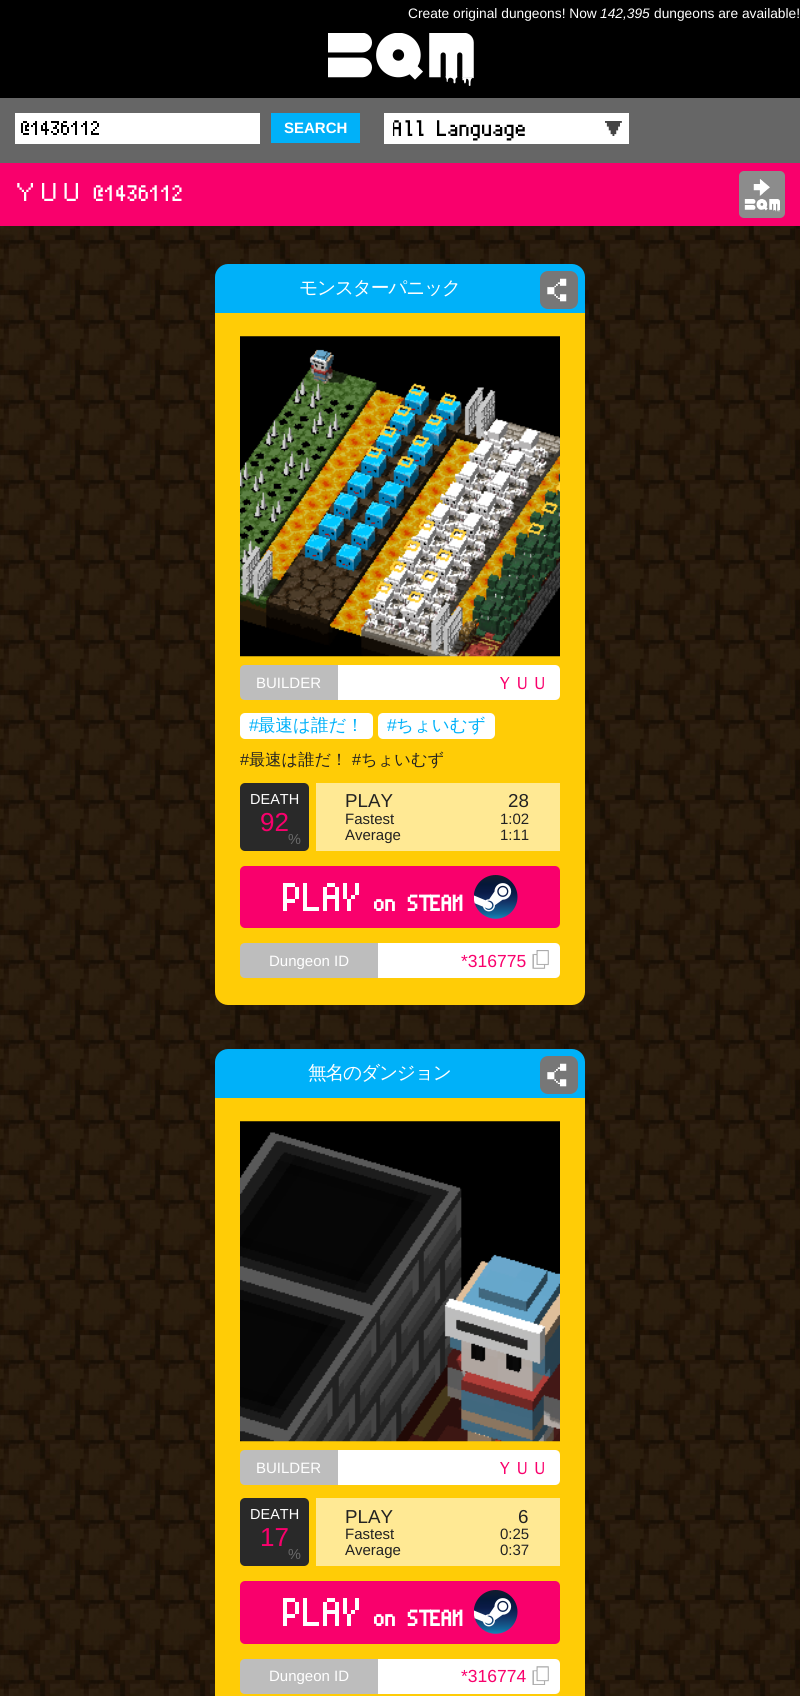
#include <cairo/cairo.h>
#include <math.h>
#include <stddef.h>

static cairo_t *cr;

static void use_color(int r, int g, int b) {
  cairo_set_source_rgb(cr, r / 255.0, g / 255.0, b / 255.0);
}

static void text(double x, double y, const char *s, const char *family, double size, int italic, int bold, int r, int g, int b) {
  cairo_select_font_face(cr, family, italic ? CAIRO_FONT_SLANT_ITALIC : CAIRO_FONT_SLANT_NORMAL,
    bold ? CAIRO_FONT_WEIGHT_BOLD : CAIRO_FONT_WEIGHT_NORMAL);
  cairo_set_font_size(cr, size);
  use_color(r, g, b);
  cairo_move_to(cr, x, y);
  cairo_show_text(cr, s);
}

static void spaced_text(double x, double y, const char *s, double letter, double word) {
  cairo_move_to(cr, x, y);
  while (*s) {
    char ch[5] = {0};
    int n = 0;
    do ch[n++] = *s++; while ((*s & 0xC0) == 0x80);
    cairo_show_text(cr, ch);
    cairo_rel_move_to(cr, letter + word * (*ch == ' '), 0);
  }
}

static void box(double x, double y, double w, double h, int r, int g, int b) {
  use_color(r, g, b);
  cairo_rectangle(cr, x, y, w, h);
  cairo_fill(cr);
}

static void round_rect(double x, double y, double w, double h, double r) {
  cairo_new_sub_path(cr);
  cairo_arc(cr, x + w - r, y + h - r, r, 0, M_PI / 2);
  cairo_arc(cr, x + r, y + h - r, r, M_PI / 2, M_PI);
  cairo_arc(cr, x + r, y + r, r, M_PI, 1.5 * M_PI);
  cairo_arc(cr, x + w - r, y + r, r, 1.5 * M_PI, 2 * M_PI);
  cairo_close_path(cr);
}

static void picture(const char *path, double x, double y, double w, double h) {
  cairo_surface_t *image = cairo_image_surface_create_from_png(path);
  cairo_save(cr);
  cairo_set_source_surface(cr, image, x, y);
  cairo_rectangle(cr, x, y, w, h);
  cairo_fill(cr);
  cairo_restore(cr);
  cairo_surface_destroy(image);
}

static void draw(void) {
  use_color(255, 255, 255);
  cairo_paint(cr);
  picture("img_01.png", 0, 226, 800, 1470);
  box(0, 0, 800, 98, 0, 0, 0);
  picture("img_02.png", 328, 33, 146, 53);
  box(0, 98, 800, 65, 102, 102, 102);
  box(15, 113, 245, 31, 255, 255, 255);
  box(271, 113, 89, 30, 0, 177, 249);
  box(384, 113, 245, 31, 255, 255, 255);
  box(0, 163, 800, 63, 249, 0, 108);
  use_color(140, 140, 140);
  round_rect(739, 171, 46, 47, 5);
  cairo_fill(cr);
  picture("img_03.png", 744, 179, 36, 33);
  use_color(0, 177, 249);
  cairo_new_path(cr);
  cairo_move_to(cr, 228, 264);
  cairo_line_to(cr, 572, 264);
  cairo_curve_to(cr, 579, 264, 585, 270, 585, 277);
  cairo_line_to(cr, 585, 313);
  cairo_line_to(cr, 215, 313);
  cairo_line_to(cr, 215, 277);
  cairo_curve_to(cr, 215, 270, 221, 264, 228, 264);
  cairo_close_path(cr);
  cairo_fill(cr);
  use_color(119, 119, 119);
  round_rect(540, 271, 38, 38, 8);
  cairo_fill(cr);
  picture("img_04.png", 547, 278, 20, 24);
  use_color(255, 204, 6);
  cairo_new_path(cr);
  cairo_move_to(cr, 215, 313);
  cairo_line_to(cr, 585, 313);
  cairo_line_to(cr, 585, 992);
  cairo_curve_to(cr, 585, 999, 579, 1005, 572, 1005);
  cairo_line_to(cr, 228, 1005);
  cairo_curve_to(cr, 221, 1005, 215, 999, 215, 992);
  cairo_close_path(cr);
  cairo_fill(cr);
  picture("img_05.png", 240, 336, 320, 321);
  use_color(189, 189, 189);
  cairo_new_path(cr);
  cairo_move_to(cr, 245, 665);
  cairo_line_to(cr, 338, 665);
  cairo_line_to(cr, 338, 700);
  cairo_line_to(cr, 245, 700);
  cairo_curve_to(cr, 242, 700, 240, 698, 240, 695);
  cairo_line_to(cr, 240, 670);
  cairo_curve_to(cr, 240, 667, 242, 665, 245, 665);
  cairo_close_path(cr);
  cairo_fill(cr);
  use_color(255, 255, 255);
  cairo_new_path(cr);
  cairo_move_to(cr, 338, 665);
  cairo_line_to(cr, 555, 665);
  cairo_curve_to(cr, 558, 665, 560, 667, 560, 670);
  cairo_line_to(cr, 560, 695);
  cairo_curve_to(cr, 560, 698, 558, 700, 555, 700);
  cairo_line_to(cr, 338, 700);
  cairo_close_path(cr);
  cairo_fill(cr);
  round_rect(240, 713, 133, 26, 5);
  cairo_fill(cr);
  round_rect(378, 713, 117, 26, 5);
  cairo_fill(cr);
  use_color(41, 41, 41);
  round_rect(240, 783, 69, 68, 5);
  cairo_fill(cr);
  box(316, 783, 244, 68, 255, 233, 148);
  use_color(249, 0, 108);
  round_rect(240, 866, 320, 62, 5);
  cairo_fill(cr);
  picture("img_06.png", 474, 875, 44, 44);
  use_color(189, 189, 189);
  cairo_new_path(cr);
  cairo_move_to(cr, 245, 943);
  cairo_line_to(cr, 378, 943);
  cairo_line_to(cr, 378, 978);
  cairo_line_to(cr, 245, 978);
  cairo_curve_to(cr, 242, 978, 240, 976, 240, 973);
  cairo_line_to(cr, 240, 948);
  cairo_curve_to(cr, 240, 945, 242, 943, 245, 943);
  cairo_close_path(cr);
  cairo_fill(cr);
  use_color(255, 255, 255);
  cairo_new_path(cr);
  cairo_move_to(cr, 378, 943);
  cairo_line_to(cr, 555, 943);
  cairo_curve_to(cr, 558, 943, 560, 945, 560, 948);
  cairo_line_to(cr, 560, 973);
  cairo_curve_to(cr, 560, 976, 558, 978, 555, 978);
  cairo_line_to(cr, 378, 978);
  cairo_close_path(cr);
  cairo_fill(cr);
  picture("img_07.png", 532, 950, 17, 19);
  use_color(0, 177, 249);
  cairo_new_path(cr);
  cairo_move_to(cr, 228, 1049);
  cairo_line_to(cr, 572, 1049);
  cairo_curve_to(cr, 579, 1049, 585, 1055, 585, 1062);
  cairo_line_to(cr, 585, 1098);
  cairo_line_to(cr, 215, 1098);
  cairo_line_to(cr, 215, 1062);
  cairo_curve_to(cr, 215, 1055, 221, 1049, 228, 1049);
  cairo_close_path(cr);
  cairo_fill(cr);
  use_color(119, 119, 119);
  round_rect(540, 1056, 38, 38, 8);
  cairo_fill(cr);
  picture("img_04.png", 547, 1063, 20, 24);
  box(215, 1098, 370, 598, 255, 204, 6);
  picture("img_08.png", 240, 1121, 320, 321);
  use_color(189, 189, 189);
  cairo_new_path(cr);
  cairo_move_to(cr, 245, 1450);
  cairo_line_to(cr, 338, 1450);
  cairo_line_to(cr, 338, 1485);
  cairo_line_to(cr, 245, 1485);
  cairo_curve_to(cr, 242, 1485, 240, 1483, 240, 1480);
  cairo_line_to(cr, 240, 1455);
  cairo_curve_to(cr, 240, 1452, 242, 1450, 245, 1450);
  cairo_close_path(cr);
  cairo_fill(cr);
  use_color(255, 255, 255);
  cairo_new_path(cr);
  cairo_move_to(cr, 338, 1450);
  cairo_line_to(cr, 555, 1450);
  cairo_curve_to(cr, 558, 1450, 560, 1452, 560, 1455);
  cairo_line_to(cr, 560, 1480);
  cairo_curve_to(cr, 560, 1483, 558, 1485, 555, 1485);
  cairo_line_to(cr, 338, 1485);
  cairo_close_path(cr);
  cairo_fill(cr);
  use_color(41, 41, 41);
  round_rect(240, 1498, 69, 68, 5);
  cairo_fill(cr);
  box(316, 1498, 244, 68, 255, 233, 148);
  use_color(249, 0, 108);
  round_rect(240, 1581, 320, 63, 5);
  cairo_fill(cr);
  picture("img_06.png", 474, 1590, 44, 44);
  use_color(189, 189, 189);
  cairo_new_path(cr);
  cairo_move_to(cr, 245, 1659);
  cairo_line_to(cr, 378, 1659);
  cairo_line_to(cr, 378, 1694);
  cairo_line_to(cr, 245, 1694);
  cairo_curve_to(cr, 242, 1694, 240, 1692, 240, 1689);
  cairo_line_to(cr, 240, 1664);
  cairo_curve_to(cr, 240, 1661, 242, 1659, 245, 1659);
  cairo_close_path(cr);
  cairo_fill(cr);
  use_color(255, 255, 255);
  cairo_new_path(cr);
  cairo_move_to(cr, 378, 1659);
  cairo_line_to(cr, 555, 1659);
  cairo_curve_to(cr, 558, 1659, 560, 1661, 560, 1664);
  cairo_line_to(cr, 560, 1689);
  cairo_curve_to(cr, 560, 1692, 558, 1694, 555, 1694);
  cairo_line_to(cr, 378, 1694);
  cairo_close_path(cr);
  cairo_fill(cr);
  picture("img_09.png", 532, 1666, 17, 19);
  text(408, 18, "Create original dungeons! Now", "Liberation Sans", 13.75, 0, 0, 255, 255, 255);
  text(600, 18, "142,395", "Liberation Sans", 13.75, 1, 0, 255, 255, 255);
  text(654, 18, "dungeons are available!", "Liberation Sans", 13.75, 0, 0, 255, 255, 255);
  text(21, 135, "@1436112", "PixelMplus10", 20, 0, 0, 0, 0, 0);
  text(284, 133, "SEARCH", "Liberation Sans", 15, 0, 1, 255, 255, 255);
  cairo_save(cr);
  cairo_rectangle(cr, 393, 116, 227, 25);
  cairo_clip(cr);
  text(392, 136, "All Language", "PixelMplus10", 22.5, 0, 0, 0, 0, 0);
  cairo_restore(cr);
  text(605, 136, "▼", "PixelMplus10", 18.75, 0, 0, 68, 68, 68);
  text(15, 201, "ＹＵＵ @1436112", "PixelMplus10", 22.5, 0, 0, 255, 255, 255);
  cairo_select_font_face(cr, "WenQuanYi Zen Hei Medium", CAIRO_FONT_SLANT_NORMAL, CAIRO_FONT_WEIGHT_NORMAL);
  cairo_set_font_size(cr, 18.75);
  spaced_text(299, 294, "モンスターパニック", -1.25, 0);
  text(256, 688, "BUILDER", "Liberation Sans", 15, 0, 0, 255, 255, 255);
  text(496, 689, "ＹＵＵ", "WenQuanYi Zen Hei Medium", 17.5, 0, 0, 249, 0, 108);
  text(249, 731, "#", "Liberation Sans", 17.5, 0, 0, 0, 177, 249);
  text(258, 731, "最速は誰だ！", "WenQuanYi Zen Hei Medium", 17.5, 0, 0, 0, 177, 249);
  text(387, 731, "#", "Liberation Sans", 17.5, 0, 0, 0, 177, 249);
  text(396, 731, "ちょいむず", "WenQuanYi Zen Hei Medium", 17.5, 0, 0, 0, 177, 249);
  text(240, 765, "#", "Liberation Sans", 16.25, 0, 0, 34, 34, 34);
  text(249, 765, "最速は誰だ！", "WenQuanYi Zen Hei Medium", 16.25, 0, 0, 34, 34, 34);
  text(352, 765, "#", "Liberation Sans", 16.25, 0, 0, 34, 34, 34);
  text(361, 765, "ちょいむず", "WenQuanYi Zen Hei Medium", 16.25, 0, 0, 34, 34, 34);
  text(250, 804, "DEATH", "Liberation Sans", 14.5, 0, 0, 255, 255, 255);
  text(260, 831, "92", "Liberation Sans", 26, 0, 0, 249, 0, 108);
  text(288, 844, "%", "Liberation Sans", 14.5, 0, 0, 105, 105, 105);
  text(345, 807, "PLAY", "Liberation Sans", 18.75, 0, 0, 34, 34, 34);
  text(508, 807, "28", "Liberation Sans", 18.75, 0, 0, 34, 34, 34);
  text(345, 824, "Fastest", "Liberation Sans", 15, 0, 0, 34, 34, 34);
  text(500, 824, "1:02", "Liberation Sans", 15, 0, 0, 34, 34, 34);
  text(345, 840, "Average", "Liberation Sans", 15, 0, 0, 34, 34, 34);
  text(500, 840, "1:11", "Liberation Sans", 15, 0, 0, 34, 34, 34);
  text(283, 911, "PLAY", "PixelMplus10", 40, 0, 0, 255, 255, 255);
  text(374, 911, "on STEAM", "PixelMplus10", 22.5, 0, 1, 255, 255, 255);
  text(269, 966, "Dungeon ID", "Liberation Sans", 15, 0, 0, 255, 255, 255);
  text(461, 967, "*316775", "Liberation Sans", 17.5, 0, 0, 249, 0, 108);
  cairo_select_font_face(cr, "WenQuanYi Zen Hei Medium", CAIRO_FONT_SLANT_NORMAL, CAIRO_FONT_WEIGHT_NORMAL);
  cairo_set_font_size(cr, 18.75);
  use_color(255, 255, 255);
  spaced_text(308, 1079, "無名のダンジョン", -1.25, 0);
  text(256, 1473, "BUILDER", "Liberation Sans", 15, 0, 0, 255, 255, 255);
  text(496, 1474, "ＹＵＵ", "WenQuanYi Zen Hei Medium", 17.5, 0, 0, 249, 0, 108);
  text(250, 1519, "DEATH", "Liberation Sans", 14.5, 0, 0, 255, 255, 255);
  text(260, 1546, "17", "Liberation Sans", 26, 0, 0, 249, 0, 108);
  text(288, 1559, "%", "Liberation Sans", 14.5, 0, 0, 105, 105, 105);
  text(345, 1523, "PLAY", "Liberation Sans", 18.75, 0, 0, 34, 34, 34);
  text(518, 1523, "6", "Liberation Sans", 18.75, 0, 0, 34, 34, 34);
  text(345, 1539, "Fastest", "Liberation Sans", 15, 0, 0, 34, 34, 34);
  text(500, 1539, "0:25", "Liberation Sans", 15, 0, 0, 34, 34, 34);
  text(345, 1555, "Average", "Liberation Sans", 15, 0, 0, 34, 34, 34);
  text(500, 1555, "0:37", "Liberation Sans", 15, 0, 0, 34, 34, 34);
  text(283, 1626, "PLAY", "PixelMplus10", 40, 0, 0, 255, 255, 255);
  text(374, 1626, "on STEAM", "PixelMplus10", 22.5, 0, 1, 255, 255, 255);
  text(269, 1681, "Dungeon ID", "Liberation Sans", 15, 0, 0, 255, 255, 255);
  text(461, 1682, "*316774", "Liberation Sans", 17.5, 0, 0, 249, 0, 108);
}

int main(void) {
  cairo_surface_t *surface = cairo_image_surface_create(CAIRO_FORMAT_RGB24, 800, 1696);
  cr = cairo_create(surface);
  cairo_font_options_t *options = cairo_font_options_create();
  cairo_font_options_set_hint_metrics(options, CAIRO_HINT_METRICS_OFF);
  cairo_font_options_set_hint_style(options, CAIRO_HINT_STYLE_NONE);
  cairo_set_font_options(cr, options);
  cairo_set_miter_limit(cr, 4);
  draw();
  cairo_surface_write_to_png(surface, "out.png");
  cairo_font_options_destroy(options);
  cairo_destroy(cr);
  cairo_surface_destroy(surface);
  return 0;
}
